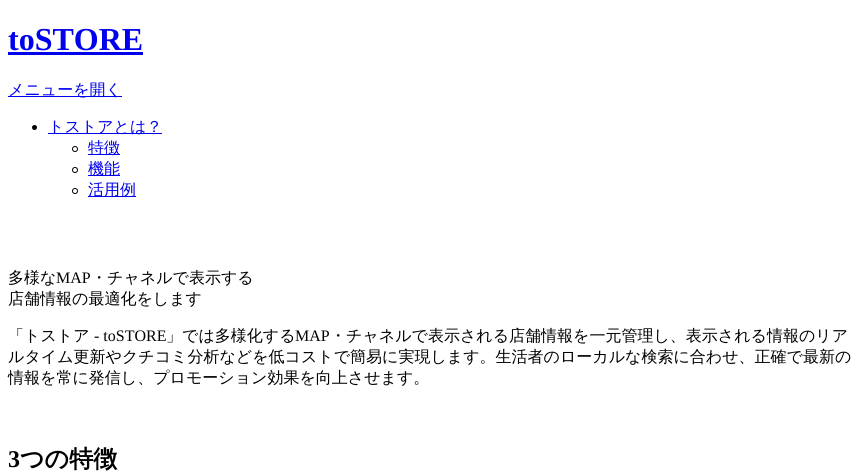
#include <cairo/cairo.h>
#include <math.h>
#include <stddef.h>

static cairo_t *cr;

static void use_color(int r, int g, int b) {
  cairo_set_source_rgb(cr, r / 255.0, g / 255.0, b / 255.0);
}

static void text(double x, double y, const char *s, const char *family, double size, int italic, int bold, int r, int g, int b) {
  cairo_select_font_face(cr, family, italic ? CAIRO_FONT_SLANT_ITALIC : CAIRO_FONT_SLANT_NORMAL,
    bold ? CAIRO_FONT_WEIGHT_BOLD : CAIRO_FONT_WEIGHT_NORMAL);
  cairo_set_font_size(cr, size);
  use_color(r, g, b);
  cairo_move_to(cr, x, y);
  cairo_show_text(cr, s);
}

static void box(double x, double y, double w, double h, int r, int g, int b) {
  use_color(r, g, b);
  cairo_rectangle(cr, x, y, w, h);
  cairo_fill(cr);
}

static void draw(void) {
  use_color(255, 255, 255);
  cairo_paint(cr);
  box(8, 52, 135, 3, 0, 0, 238);
  box(8, 96, 114, 1, 0, 0, 238);
  use_color(0, 0, 0);
  cairo_arc(cr, 34.5, 127.5, 2.5, 0, 2 * M_PI);
  cairo_fill(cr);
  box(48, 133, 114, 1, 0, 0, 238);
  cairo_arc(cr, 75, 149, 2.5, 0, 2 * M_PI);
  use_color(0, 0, 0);
  cairo_set_line_width(cr, 1);
  cairo_stroke(cr);
  box(88, 154, 32, 1, 0, 0, 238);
  cairo_arc(cr, 75, 170, 2.5, 0, 2 * M_PI);
  use_color(0, 0, 0);
  cairo_stroke(cr);
  box(88, 175, 32, 1, 0, 0, 238);
  cairo_arc(cr, 75, 191, 2.5, 0, 2 * M_PI);
  use_color(0, 0, 0);
  cairo_stroke(cr);
  box(88, 196, 48, 1, 0, 0, 238);
  text(8, 50, "toSTORE", "Liberation Serif", 32, 0, 1, 0, 0, 238);
  text(8, 95, "メニューを開く", "WenQuanYi Zen Hei Medium", 16, 0, 0, 0, 0, 238);
  text(48, 132, "トストアとは？", "WenQuanYi Zen Hei Medium", 16, 0, 0, 0, 0, 238);
  text(88, 153, "特徴", "WenQuanYi Zen Hei Medium", 16, 0, 0, 0, 0, 238);
  text(88, 174, "機能", "WenQuanYi Zen Hei Medium", 16, 0, 0, 0, 0, 238);
  text(88, 195, "活用例", "WenQuanYi Zen Hei Medium", 16, 0, 0, 0, 0, 238);
  text(8, 283, "多様な", "WenQuanYi Zen Hei Medium", 16, 0, 0, 0, 0, 0);
  text(56, 283, "MAP", "Liberation Serif", 16, 0, 0, 0, 0, 0);
  text(91, 283, "・チャネルで表示する", "WenQuanYi Zen Hei Medium", 16, 0, 0, 0, 0, 0);
  text(8, 304, "店舗情報の最適化をします", "WenQuanYi Zen Hei Medium", 16, 0, 0, 0, 0, 0);
  text(8, 341, "「トストア", "WenQuanYi Zen Hei Medium", 16, 0, 0, 0, 0, 0);
  text(94, 341, "- toSTORE", "Liberation Serif", 16, 0, 0, 0, 0, 0);
  text(166, 341, "」では多様化する", "WenQuanYi Zen Hei Medium", 16, 0, 0, 0, 0, 0);
  text(295, 341, "MAP", "Liberation Serif", 16, 0, 0, 0, 0, 0);
  text(330, 341, "・チャネルで表示される店舗情報を一元管理し、表示される情報のリア", "WenQuanYi Zen Hei Medium", 16, 0, 0, 0, 0, 0);
  text(8, 362, "ルタイム更新やクチコミ分析などを低コストで簡易に実現します。生活者のローカルな検索に合わせ、正確で最新の", "WenQuanYi Zen Hei Medium", 16, 0, 0, 0, 0, 0);
  text(8, 383, "情報を常に発信し、プロモーション効果を向上させます。", "WenQuanYi Zen Hei Medium", 16, 0, 0, 0, 0, 0);
  text(8, 467, "3", "Liberation Serif", 24, 0, 1, 0, 0, 0);
  text(20, 467, "つの特徴", "WenQuanYi Zen Hei", 24, 0, 1, 0, 0, 0);
}

int main(void) {
  cairo_surface_t *surface = cairo_image_surface_create(CAIRO_FORMAT_RGB24, 865, 476);
  cr = cairo_create(surface);
  cairo_font_options_t *options = cairo_font_options_create();
  cairo_font_options_set_hint_metrics(options, CAIRO_HINT_METRICS_OFF);
  cairo_font_options_set_hint_style(options, CAIRO_HINT_STYLE_NONE);
  cairo_set_font_options(cr, options);
  cairo_set_miter_limit(cr, 4);
  draw();
  cairo_surface_write_to_png(surface, "out.png");
  cairo_font_options_destroy(options);
  cairo_destroy(cr);
  cairo_surface_destroy(surface);
  return 0;
}
